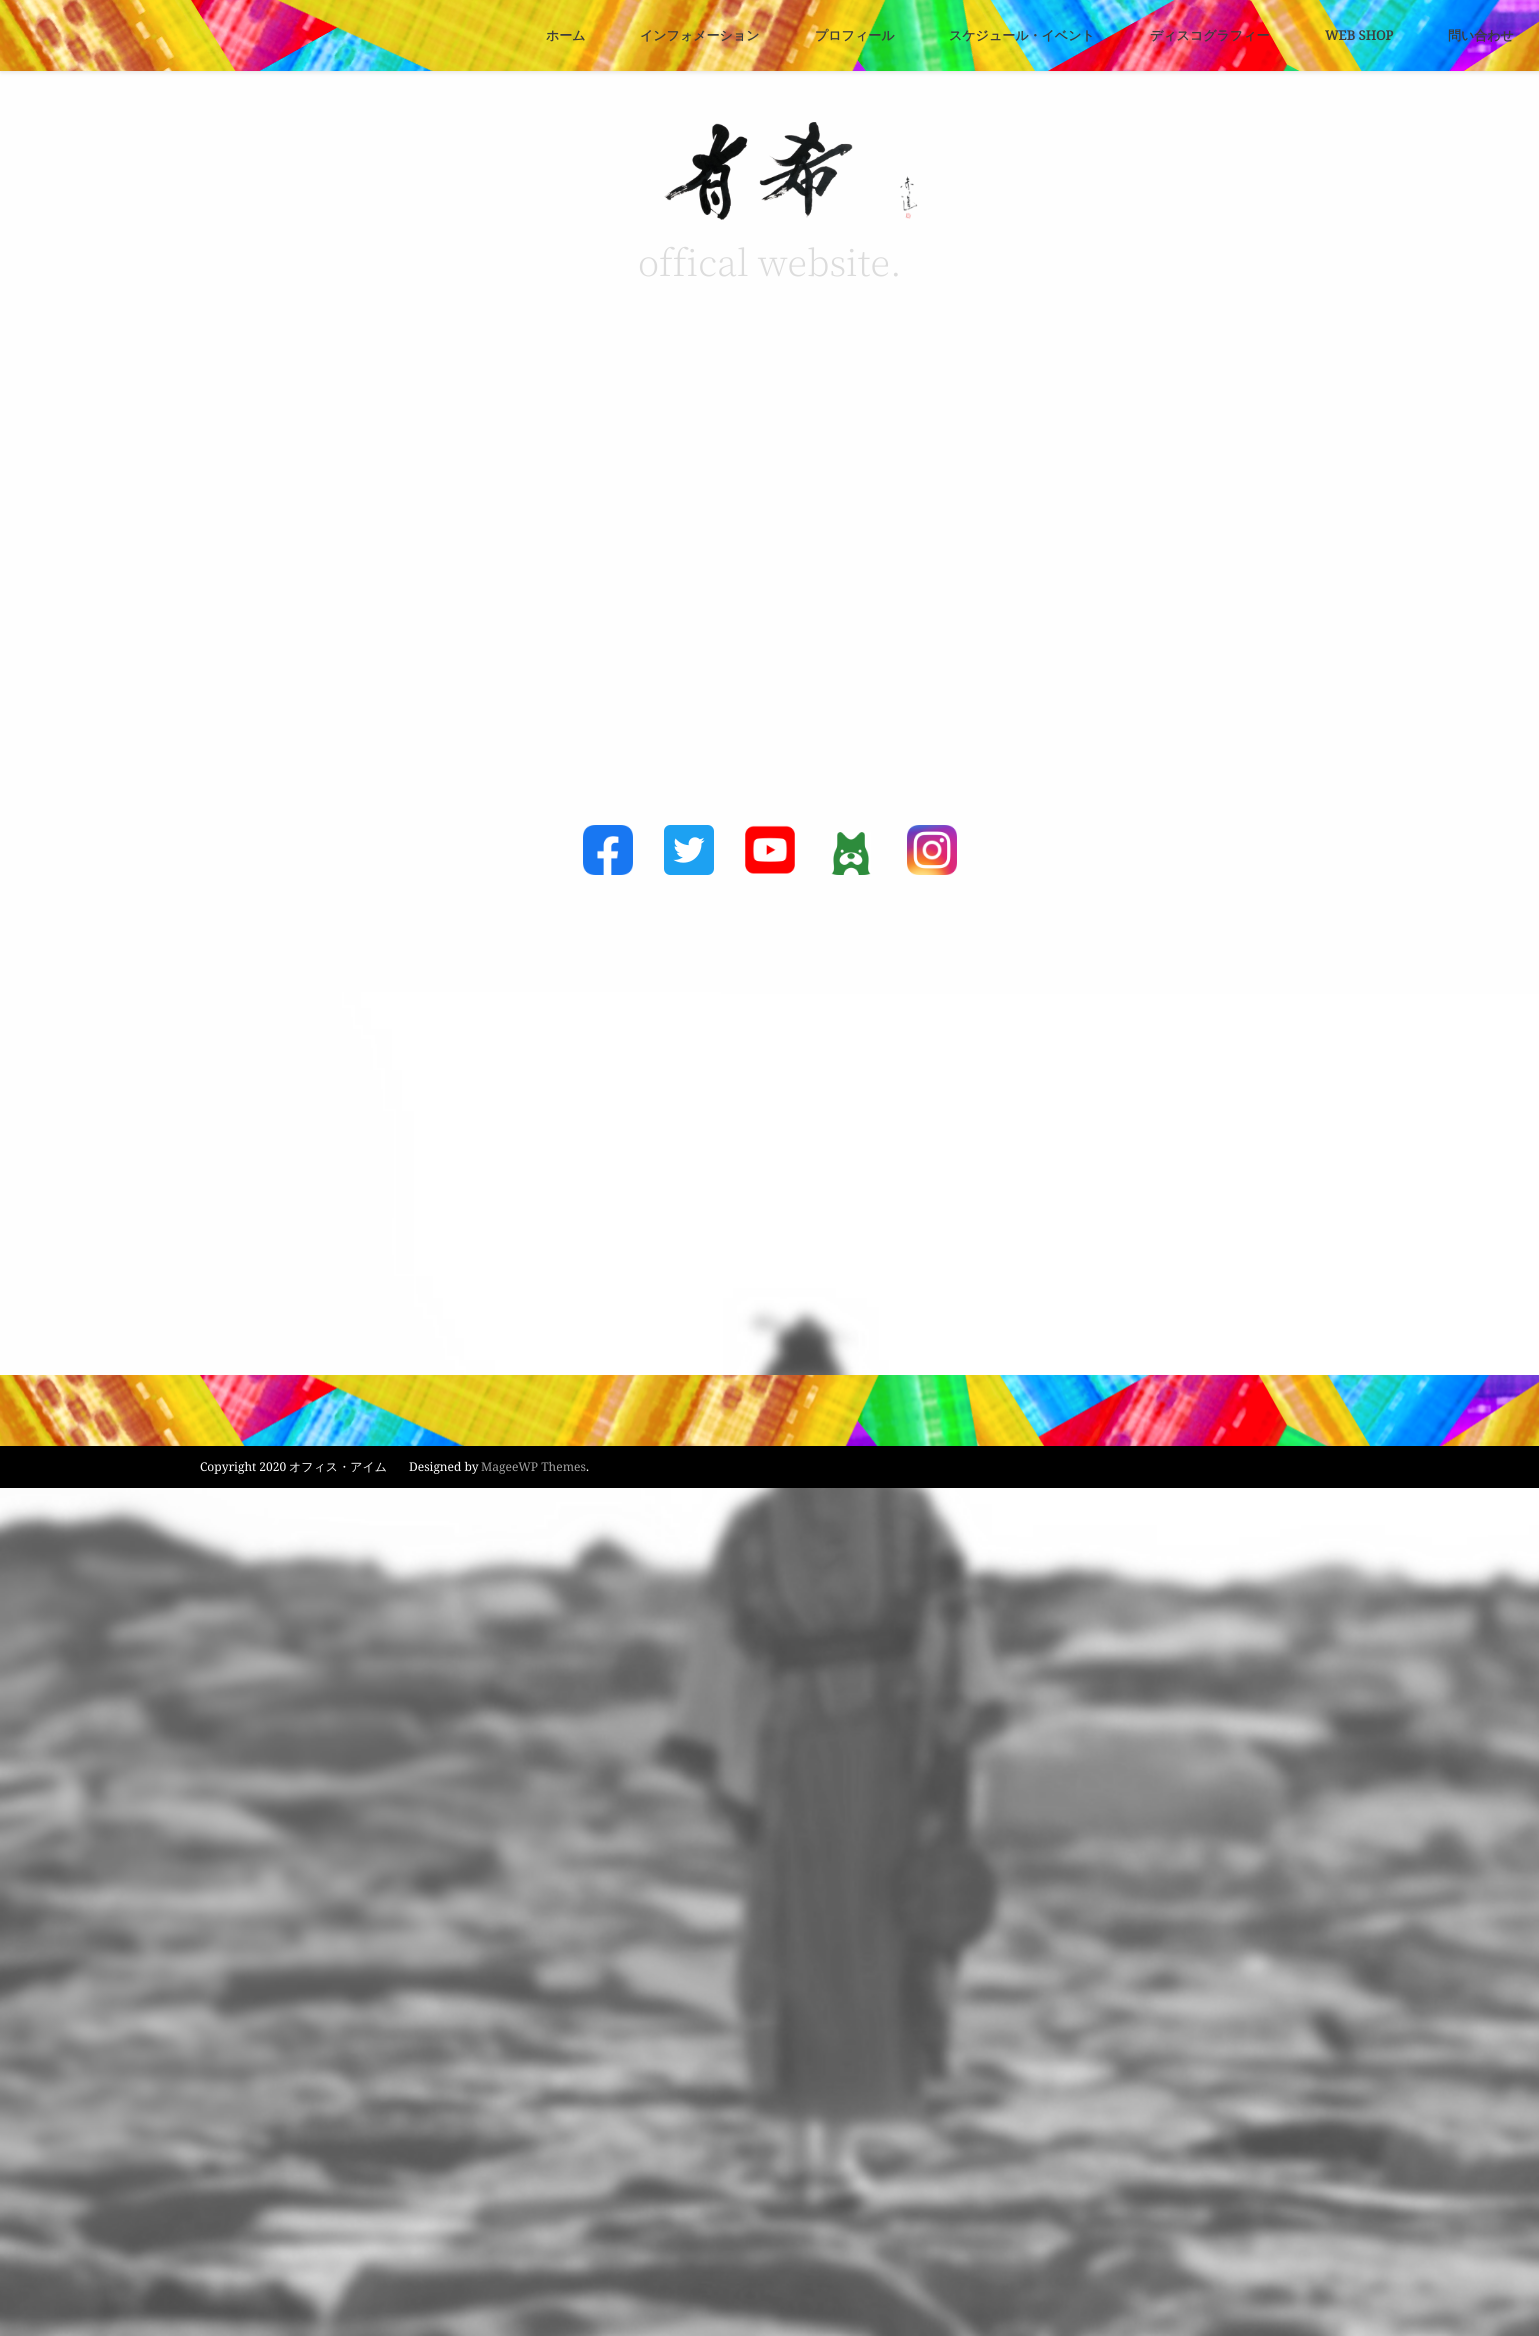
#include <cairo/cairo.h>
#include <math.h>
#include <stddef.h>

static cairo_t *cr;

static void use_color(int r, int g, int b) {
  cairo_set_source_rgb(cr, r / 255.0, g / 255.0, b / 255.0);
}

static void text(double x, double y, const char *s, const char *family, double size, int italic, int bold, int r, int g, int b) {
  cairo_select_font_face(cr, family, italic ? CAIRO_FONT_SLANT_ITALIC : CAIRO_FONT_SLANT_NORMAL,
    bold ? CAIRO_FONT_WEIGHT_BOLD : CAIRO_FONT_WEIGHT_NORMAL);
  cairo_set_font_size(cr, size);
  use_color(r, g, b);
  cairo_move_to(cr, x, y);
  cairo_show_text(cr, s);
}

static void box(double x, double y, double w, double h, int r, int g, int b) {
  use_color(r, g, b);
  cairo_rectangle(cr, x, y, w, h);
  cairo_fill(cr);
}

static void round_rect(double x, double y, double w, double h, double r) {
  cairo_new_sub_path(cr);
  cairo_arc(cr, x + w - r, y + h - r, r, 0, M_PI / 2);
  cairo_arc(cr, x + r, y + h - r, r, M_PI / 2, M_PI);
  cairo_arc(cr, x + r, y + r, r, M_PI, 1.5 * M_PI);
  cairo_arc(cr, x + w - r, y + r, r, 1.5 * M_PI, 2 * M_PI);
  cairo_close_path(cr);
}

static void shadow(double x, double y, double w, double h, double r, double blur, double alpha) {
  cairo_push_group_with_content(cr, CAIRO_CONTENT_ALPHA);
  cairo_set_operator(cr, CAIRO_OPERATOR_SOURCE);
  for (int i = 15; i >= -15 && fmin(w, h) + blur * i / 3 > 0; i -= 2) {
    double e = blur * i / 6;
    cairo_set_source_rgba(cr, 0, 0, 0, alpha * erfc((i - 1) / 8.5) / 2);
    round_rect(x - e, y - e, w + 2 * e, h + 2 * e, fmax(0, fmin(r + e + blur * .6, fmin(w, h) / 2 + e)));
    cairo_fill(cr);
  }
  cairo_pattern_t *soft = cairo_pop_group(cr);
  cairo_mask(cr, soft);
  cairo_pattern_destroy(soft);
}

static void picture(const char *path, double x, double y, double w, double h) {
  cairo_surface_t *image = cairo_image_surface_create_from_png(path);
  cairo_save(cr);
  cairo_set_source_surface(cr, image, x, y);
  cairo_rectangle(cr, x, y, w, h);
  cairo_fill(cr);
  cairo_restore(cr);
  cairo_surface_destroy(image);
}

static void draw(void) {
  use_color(255, 255, 255);
  cairo_paint(cr);
  picture("img_01.png", 0, 71, 1539, 2265);
  use_color(100, 100, 100);
  shadow(1, 1, 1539, 71, 0, 2.5, 0.2);
  picture("img_02.png", 0, 0, 1539, 71);
  picture("img_03.png", 664, 122, 254, 98);
  picture("img_04.png", 583, 825, 50, 50);
  picture("img_05.png", 664, 825, 50, 50);
  picture("img_06.png", 745, 825, 50, 49);
  picture("img_07.png", 831, 832, 40, 43);
  picture("img_08.png", 907, 825, 50, 50);
  picture("img_09.png", 0, 1375, 1539, 71);
  box(0, 1446, 1539, 42, 0, 0, 0);
  text(546, 40, "ホーム", "WenQuanYi Zen Hei", 13, 0, 1, 61, 61, 61);
  text(640, 40, "インフォメーション", "WenQuanYi Zen Hei", 13, 0, 1, 61, 61, 61);
  text(815, 40, "プロフィール", "WenQuanYi Zen Hei", 13, 0, 1, 61, 61, 61);
  text(949, 40, "スケジュール・イベント", "WenQuanYi Zen Hei", 13, 0, 1, 61, 61, 61);
  text(1150, 40, "ディスコグラフィー", "WenQuanYi Zen Hei", 13, 0, 1, 61, 61, 61);
  text(1325, 40, "WEB SHOP", "Noto Serif", 13, 0, 1, 61, 61, 61);
  text(1448, 40, "問い合わせ", "WenQuanYi Zen Hei", 13, 0, 1, 61, 61, 61);
  text(638, 276, "offical website.", "Noto Serif SC ExtraLight", 36, 0, 0, 220, 220, 220);
  text(200, 1471, "Copyright 2020", "Noto Serif", 12, 0, 0, 255, 255, 255);
  text(289, 1471, "オフィス・アイム", "WenQuanYi Zen Hei Medium", 12, 0, 0, 255, 255, 255);
  text(409, 1471, "Designed by", "Noto Serif", 12, 0, 0, 255, 255, 255);
  text(481, 1471, "MageeWP Themes", "Noto Serif", 12, 0, 0, 160, 160, 160);
  text(586, 1471, ".", "Noto Serif", 12, 0, 0, 255, 255, 255);
}

int main(void) {
  cairo_surface_t *surface = cairo_image_surface_create(CAIRO_FORMAT_RGB24, 1539, 2336);
  cr = cairo_create(surface);
  cairo_font_options_t *options = cairo_font_options_create();
  cairo_font_options_set_hint_metrics(options, CAIRO_HINT_METRICS_OFF);
  cairo_font_options_set_hint_style(options, CAIRO_HINT_STYLE_NONE);
  cairo_set_font_options(cr, options);
  cairo_set_miter_limit(cr, 4);
  draw();
  cairo_surface_write_to_png(surface, "out.png");
  cairo_font_options_destroy(options);
  cairo_destroy(cr);
  cairo_surface_destroy(surface);
  return 0;
}
